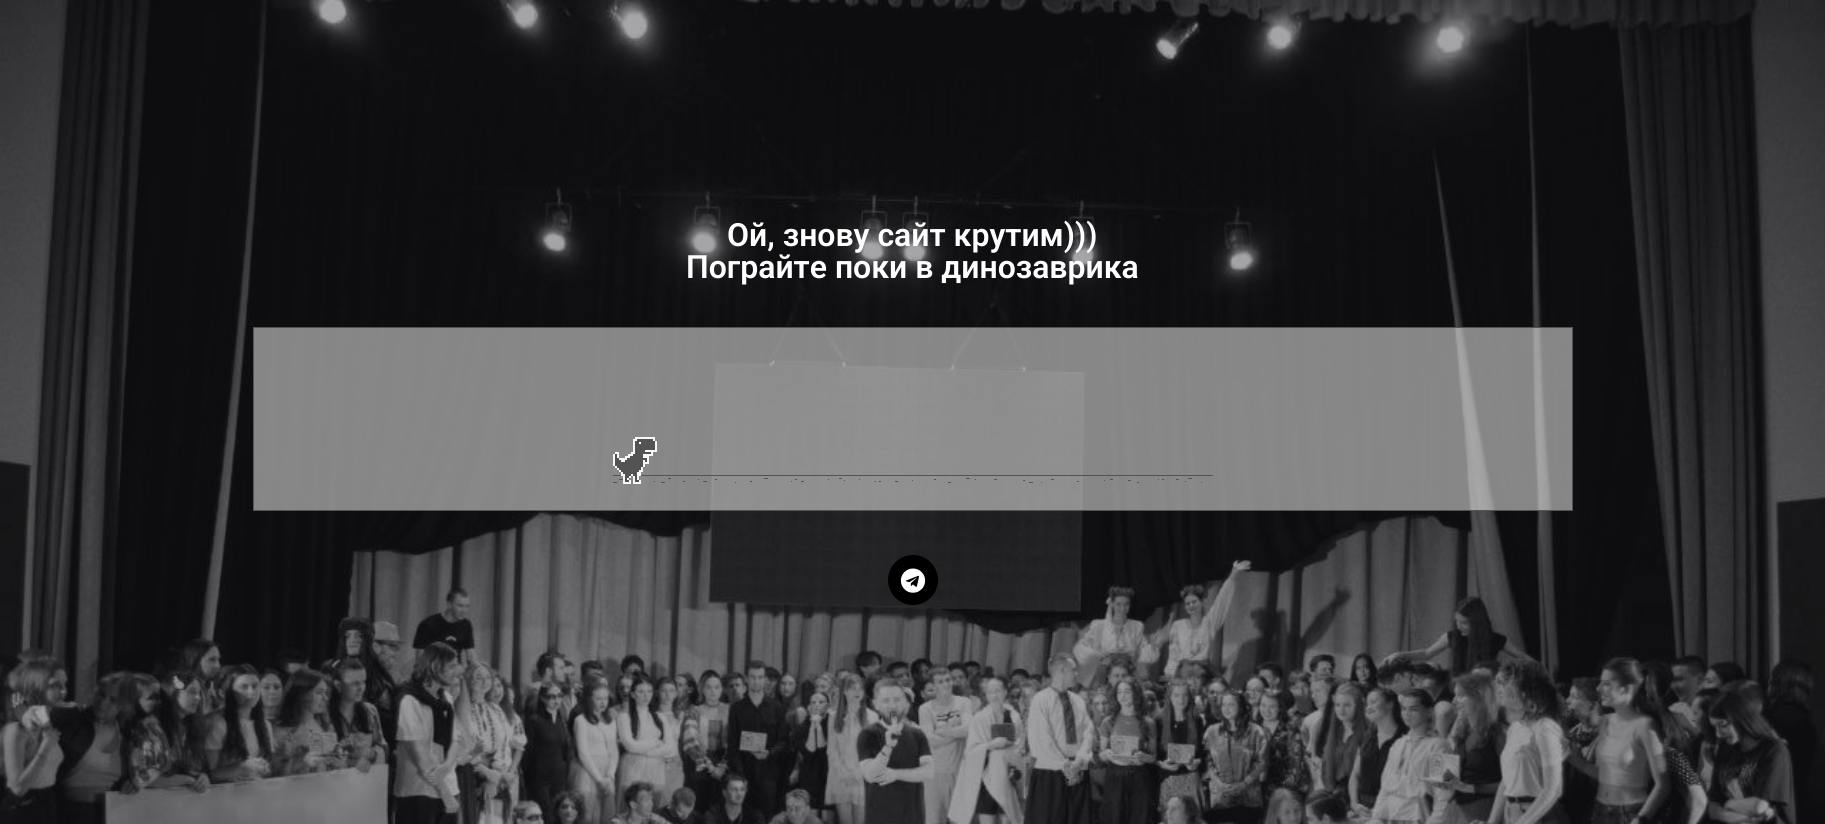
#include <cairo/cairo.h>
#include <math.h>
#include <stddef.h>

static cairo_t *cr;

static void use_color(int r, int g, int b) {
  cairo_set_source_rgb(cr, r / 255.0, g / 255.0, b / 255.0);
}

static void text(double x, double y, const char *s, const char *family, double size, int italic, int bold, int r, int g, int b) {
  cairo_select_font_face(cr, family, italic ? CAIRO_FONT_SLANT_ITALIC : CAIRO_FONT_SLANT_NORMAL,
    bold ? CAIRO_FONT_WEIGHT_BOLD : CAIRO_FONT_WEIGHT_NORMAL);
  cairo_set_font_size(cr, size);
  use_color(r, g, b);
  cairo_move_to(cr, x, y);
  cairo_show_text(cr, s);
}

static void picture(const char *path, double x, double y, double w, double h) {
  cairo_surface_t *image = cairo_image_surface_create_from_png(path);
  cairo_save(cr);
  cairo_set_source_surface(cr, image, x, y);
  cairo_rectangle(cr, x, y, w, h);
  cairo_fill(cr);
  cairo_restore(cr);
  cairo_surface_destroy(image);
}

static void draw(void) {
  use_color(255, 255, 255);
  cairo_paint(cr);
  picture("img_01.png", 0, 0, 1825, 824);
  cairo_set_source_rgba(cr, 1, 1, 1, 0.5);
  cairo_rectangle(cr, 253.5, 327.5, 1319, 183);
  cairo_fill_preserve(cr);
  use_color(83, 83, 83);
  cairo_set_line_width(cr, 1);
  cairo_stroke(cr);
  picture("img_02.png", 613, 437, 600, 47);
  use_color(0, 0, 0);
  cairo_arc(cr, 913, 580, 25, 0, 2 * M_PI);
  cairo_fill(cr);
  picture("img_03.png", 900, 568, 26, 25);
  text(727, 246, "Ой, знову сайт крутим)))", "Roboto SemiBold", 32, 0, 0, 255, 255, 255);
  text(686, 278, "Пограйте поки в динозаврика", "Roboto SemiBold", 32, 0, 0, 255, 255, 255);
}

int main(void) {
  cairo_surface_t *surface = cairo_image_surface_create(CAIRO_FORMAT_RGB24, 1825, 824);
  cr = cairo_create(surface);
  cairo_font_options_t *options = cairo_font_options_create();
  cairo_font_options_set_hint_metrics(options, CAIRO_HINT_METRICS_OFF);
  cairo_font_options_set_hint_style(options, CAIRO_HINT_STYLE_NONE);
  cairo_set_font_options(cr, options);
  cairo_set_miter_limit(cr, 4);
  draw();
  cairo_surface_write_to_png(surface, "out.png");
  cairo_font_options_destroy(options);
  cairo_destroy(cr);
  cairo_surface_destroy(surface);
  return 0;
}
